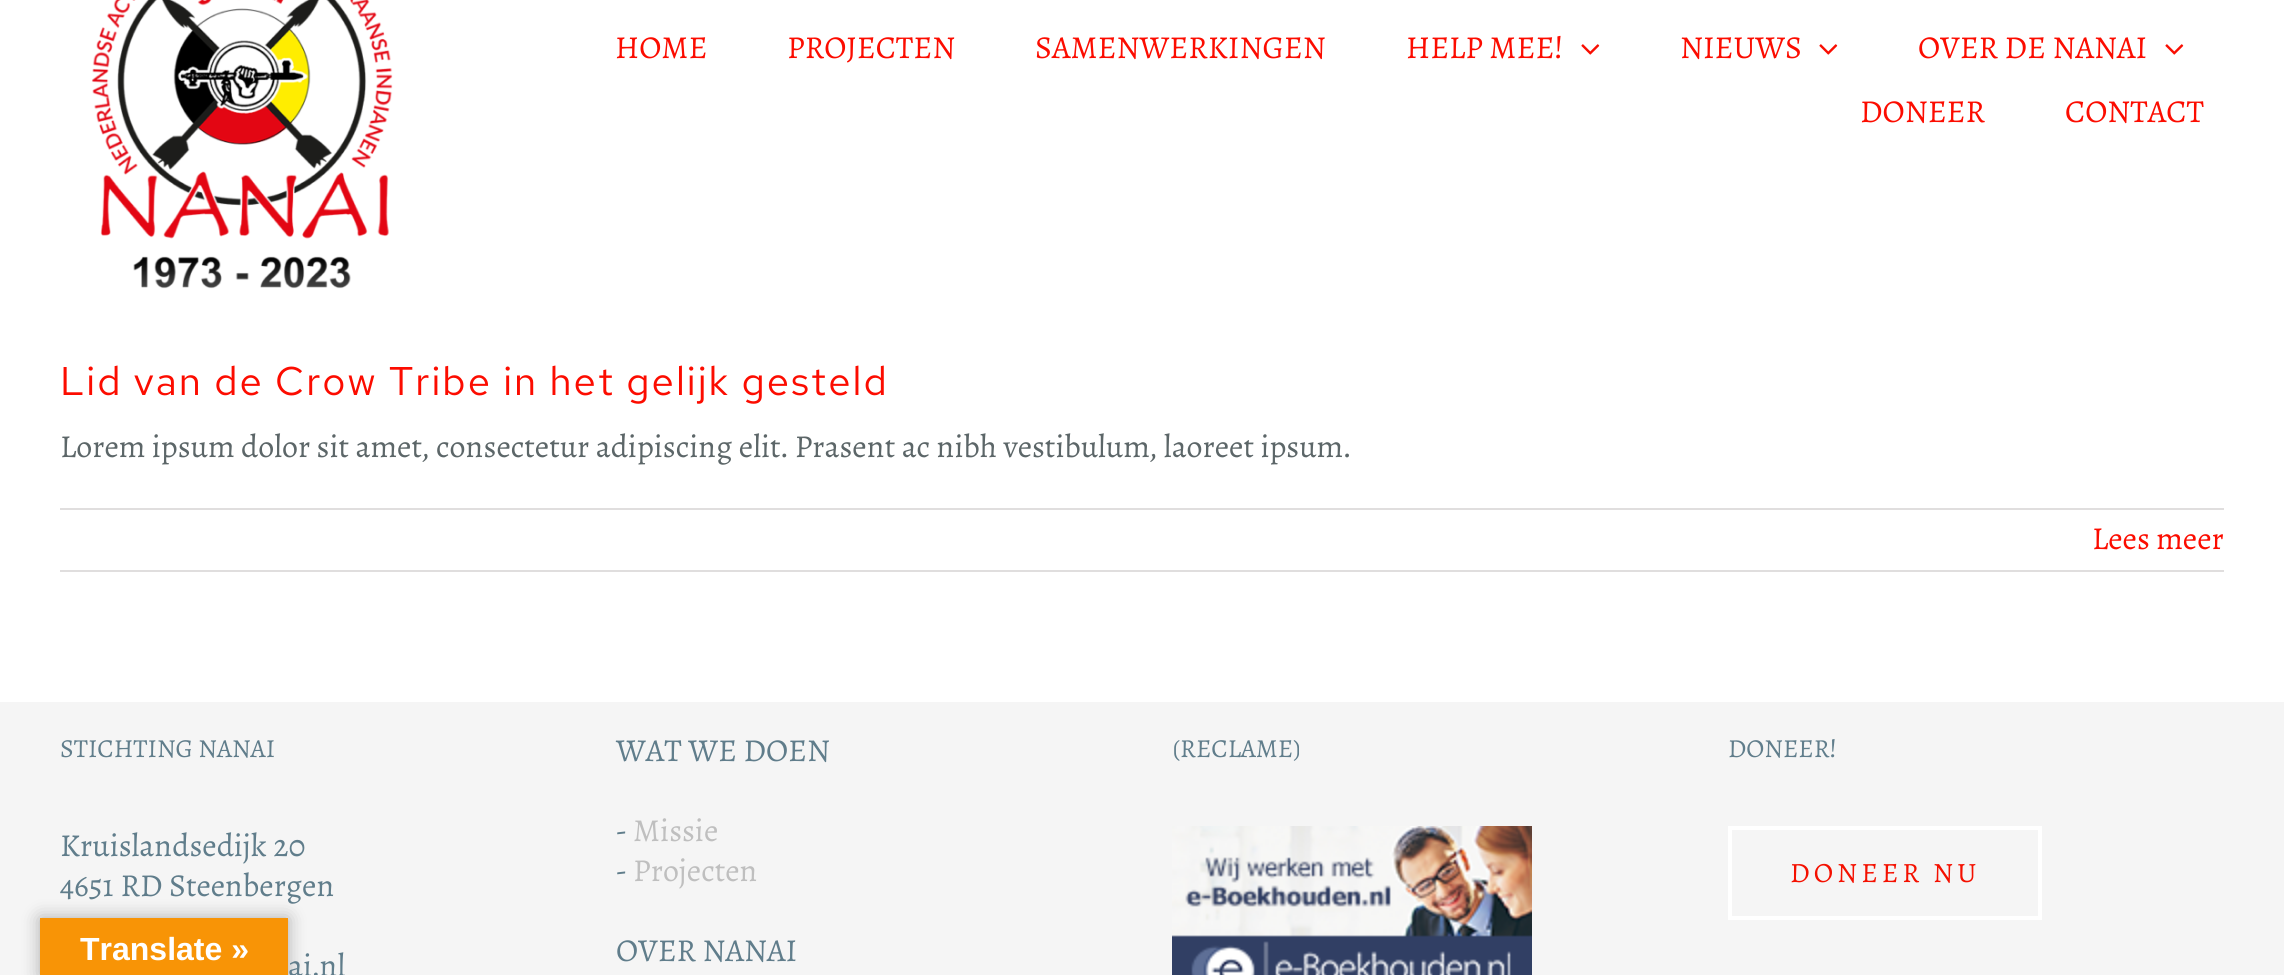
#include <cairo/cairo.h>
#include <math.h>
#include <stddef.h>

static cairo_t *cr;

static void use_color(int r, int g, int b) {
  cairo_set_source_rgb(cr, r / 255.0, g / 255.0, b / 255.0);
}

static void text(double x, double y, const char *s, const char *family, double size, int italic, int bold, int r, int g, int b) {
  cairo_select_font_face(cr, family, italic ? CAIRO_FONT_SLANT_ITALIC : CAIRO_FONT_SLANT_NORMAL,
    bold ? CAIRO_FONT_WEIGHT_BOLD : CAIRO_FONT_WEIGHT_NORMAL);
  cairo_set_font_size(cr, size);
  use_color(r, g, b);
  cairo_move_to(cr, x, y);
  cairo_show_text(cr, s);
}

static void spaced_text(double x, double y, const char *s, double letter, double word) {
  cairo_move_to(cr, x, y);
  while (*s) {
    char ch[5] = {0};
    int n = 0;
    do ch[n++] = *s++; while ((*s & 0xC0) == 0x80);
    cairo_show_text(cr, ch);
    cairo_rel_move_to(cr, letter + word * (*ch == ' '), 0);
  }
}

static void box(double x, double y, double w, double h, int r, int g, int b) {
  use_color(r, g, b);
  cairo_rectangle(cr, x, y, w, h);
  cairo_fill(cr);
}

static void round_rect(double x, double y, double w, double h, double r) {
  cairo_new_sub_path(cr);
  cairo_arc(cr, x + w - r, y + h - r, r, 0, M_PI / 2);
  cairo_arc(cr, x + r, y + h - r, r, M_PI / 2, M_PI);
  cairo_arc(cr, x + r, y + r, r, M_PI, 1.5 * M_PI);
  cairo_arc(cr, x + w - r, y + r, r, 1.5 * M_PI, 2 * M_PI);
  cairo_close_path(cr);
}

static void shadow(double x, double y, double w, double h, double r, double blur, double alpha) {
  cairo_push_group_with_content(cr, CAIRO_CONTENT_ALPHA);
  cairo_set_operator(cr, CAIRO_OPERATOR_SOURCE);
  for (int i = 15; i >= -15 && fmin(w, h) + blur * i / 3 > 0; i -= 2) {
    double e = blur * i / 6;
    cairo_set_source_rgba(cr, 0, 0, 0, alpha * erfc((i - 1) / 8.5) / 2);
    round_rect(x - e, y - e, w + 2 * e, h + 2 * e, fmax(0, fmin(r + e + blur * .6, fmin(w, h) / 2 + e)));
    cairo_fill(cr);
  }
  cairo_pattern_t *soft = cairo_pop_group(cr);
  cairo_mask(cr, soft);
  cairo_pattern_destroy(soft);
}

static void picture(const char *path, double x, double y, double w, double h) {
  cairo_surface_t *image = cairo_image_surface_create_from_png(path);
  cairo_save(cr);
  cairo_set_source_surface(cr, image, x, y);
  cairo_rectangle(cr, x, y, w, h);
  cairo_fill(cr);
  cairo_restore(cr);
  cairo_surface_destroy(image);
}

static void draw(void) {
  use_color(255, 255, 255);
  cairo_paint(cr);
  picture("img_01.png", 91, 0, 302, 289);
  picture("img_02.png", 1581, 44, 19, 11);
  picture("img_02.png", 1819, 44, 19, 11);
  picture("img_02.png", 2165, 44, 19, 11);
  box(60, 508, 2164, 2, 224, 222, 222);
  box(60, 570, 2164, 2, 224, 222, 222);
  box(0, 702, 2284, 273, 245, 245, 245);
  picture("img_03.png", 1172, 826, 360, 149);
  cairo_rectangle(cr, 1730, 828, 310, 90);
  use_color(255, 255, 255);
  cairo_set_line_width(cr, 4);
  cairo_stroke(cr);
  use_color(0, 0, 0);
  shadow(40, 918, 248, 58, 0, 9, 0.3);
  box(40, 918, 248, 57, 248, 148, 6);
  text(615, 58, "HOME", "Sahitya", 32, 0, 0, 252, 12, 0);
  text(787, 58, "PROJECTEN", "Sahitya", 32, 0, 0, 252, 12, 0);
  text(1035, 58, "SAMENWERKINGEN", "Sahitya", 32, 0, 0, 252, 12, 0);
  text(1406, 58, "HELP MEE!", "Sahitya", 32, 0, 0, 252, 12, 0);
  text(1680, 58, "NIEUWS", "Sahitya", 32, 0, 0, 252, 12, 0);
  text(1918, 58, "OVER DE NANAI", "Sahitya", 32, 0, 0, 252, 12, 0);
  text(1860, 122, "DONEER", "Sahitya", 32, 0, 0, 252, 12, 0);
  text(2065, 122, "CONTACT", "Sahitya", 32, 0, 0, 252, 12, 0);
  cairo_select_font_face(cr, "Red Hat Text", CAIRO_FONT_SLANT_NORMAL, CAIRO_FONT_WEIGHT_NORMAL);
  cairo_set_font_size(cr, 40);
  spaced_text(60, 395, "Lid van de Crow Tribe in het gelijk gesteld", 2, 0);
  text(60, 457, "Lorem ipsum dolor sit amet, consectetur adipiscing elit. Prasent ac nibh vestibulum, laoreet ipsum.", "Sahitya", 32, 0, 0, 92, 102, 104);
  text(2092, 549, "Lees meer", "Sahitya", 32, 0, 0, 252, 12, 0);
  text(60, 757, "STICHTING NANAI", "Sahitya", 26, 0, 0, 96, 125, 139);
  text(60, 856, "Kruislandsedijk 20", "Sahitya", 32, 0, 0, 96, 125, 139);
  text(60, 896, "4651 RD Steenbergen", "Sahitya", 32, 0, 0, 96, 125, 139);
  text(288, 976, "ai.nl", "Sahitya", 32, 0, 0, 96, 125, 139);
  text(616, 761, "WAT WE DOEN", "Sahitya", 32, 0, 0, 96, 125, 139);
  text(616, 841, "-", "Sahitya", 32, 0, 0, 96, 125, 139);
  text(633, 841, "Missie", "Sahitya", 32, 0, 0, 191, 191, 191);
  text(616, 881, "-", "Sahitya", 32, 0, 0, 96, 125, 139);
  text(633, 881, "Projecten", "Sahitya", 32, 0, 0, 191, 191, 191);
  text(616, 961, "OVER NANAI", "Sahitya", 32, 0, 0, 96, 125, 139);
  text(1172, 757, "(RECLAME)", "Sahitya", 26, 0, 0, 96, 125, 139);
  text(1728, 757, "DONEER!", "Sahitya", 26, 0, 0, 96, 125, 139);
  cairo_set_font_size(cr, 28);
  use_color(244, 16, 0);
  spaced_text(1790, 882, "DONEER NU", 4, 0);
  text(80, 960, "Translate »", "Liberation Sans", 32, 0, 1, 255, 255, 255);
}

int main(void) {
  cairo_surface_t *surface = cairo_image_surface_create(CAIRO_FORMAT_RGB24, 2284, 975);
  cr = cairo_create(surface);
  cairo_font_options_t *options = cairo_font_options_create();
  cairo_font_options_set_hint_metrics(options, CAIRO_HINT_METRICS_OFF);
  cairo_font_options_set_hint_style(options, CAIRO_HINT_STYLE_NONE);
  cairo_set_font_options(cr, options);
  cairo_set_miter_limit(cr, 4);
  draw();
  cairo_surface_write_to_png(surface, "out.png");
  cairo_font_options_destroy(options);
  cairo_destroy(cr);
  cairo_surface_destroy(surface);
  return 0;
}
